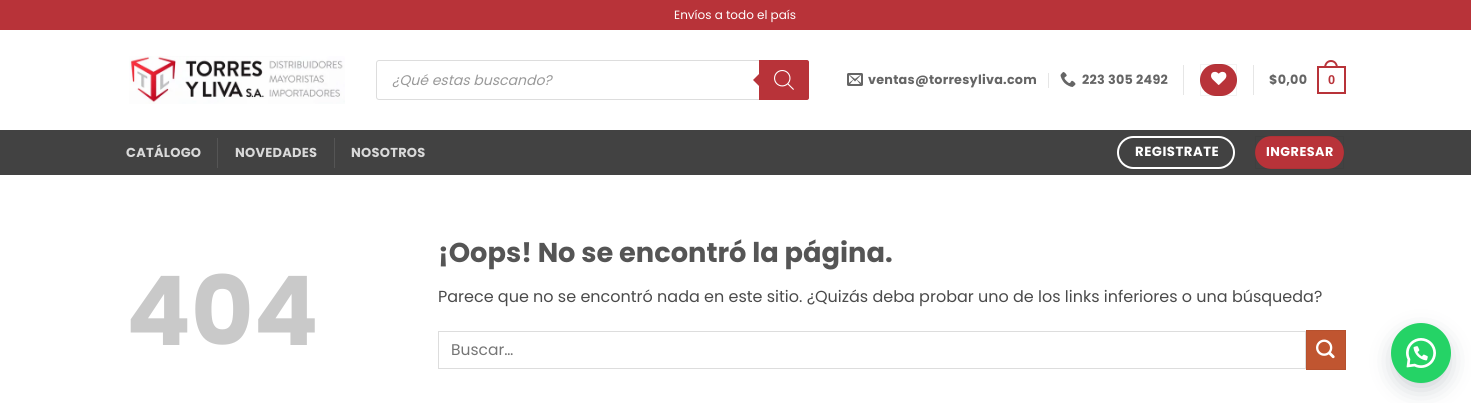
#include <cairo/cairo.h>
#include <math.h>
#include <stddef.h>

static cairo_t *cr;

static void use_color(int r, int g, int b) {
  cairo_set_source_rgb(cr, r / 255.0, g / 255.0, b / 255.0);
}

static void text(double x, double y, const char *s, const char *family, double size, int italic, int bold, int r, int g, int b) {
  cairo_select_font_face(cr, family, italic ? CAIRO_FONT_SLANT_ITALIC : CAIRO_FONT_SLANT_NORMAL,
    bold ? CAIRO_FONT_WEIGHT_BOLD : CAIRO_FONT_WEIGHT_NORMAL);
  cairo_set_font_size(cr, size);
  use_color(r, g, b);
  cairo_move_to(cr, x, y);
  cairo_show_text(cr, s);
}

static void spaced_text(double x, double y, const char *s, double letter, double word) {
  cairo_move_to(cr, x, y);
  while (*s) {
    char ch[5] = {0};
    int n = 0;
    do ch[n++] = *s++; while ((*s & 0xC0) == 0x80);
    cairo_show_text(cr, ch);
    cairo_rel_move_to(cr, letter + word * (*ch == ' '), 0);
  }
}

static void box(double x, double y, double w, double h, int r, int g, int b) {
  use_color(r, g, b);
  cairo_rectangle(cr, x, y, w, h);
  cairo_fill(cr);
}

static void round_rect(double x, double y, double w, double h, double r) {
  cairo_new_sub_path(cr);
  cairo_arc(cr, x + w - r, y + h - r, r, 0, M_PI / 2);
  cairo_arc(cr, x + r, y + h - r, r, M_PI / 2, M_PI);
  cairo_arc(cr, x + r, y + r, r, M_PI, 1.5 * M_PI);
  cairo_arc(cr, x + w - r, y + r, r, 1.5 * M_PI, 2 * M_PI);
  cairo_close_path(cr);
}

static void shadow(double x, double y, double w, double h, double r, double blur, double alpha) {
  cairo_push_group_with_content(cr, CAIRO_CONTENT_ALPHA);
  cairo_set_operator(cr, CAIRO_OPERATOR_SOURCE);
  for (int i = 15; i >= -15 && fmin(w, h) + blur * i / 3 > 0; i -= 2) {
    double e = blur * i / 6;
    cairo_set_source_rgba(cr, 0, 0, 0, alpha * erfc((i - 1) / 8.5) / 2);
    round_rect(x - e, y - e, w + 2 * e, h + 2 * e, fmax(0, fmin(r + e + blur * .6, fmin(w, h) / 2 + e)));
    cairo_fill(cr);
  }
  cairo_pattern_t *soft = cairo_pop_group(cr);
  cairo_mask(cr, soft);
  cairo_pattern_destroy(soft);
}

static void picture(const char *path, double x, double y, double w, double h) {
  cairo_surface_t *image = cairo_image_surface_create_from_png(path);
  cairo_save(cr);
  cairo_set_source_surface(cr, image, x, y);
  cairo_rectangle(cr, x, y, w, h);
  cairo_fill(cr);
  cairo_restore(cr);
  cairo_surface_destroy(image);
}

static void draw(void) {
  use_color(255, 255, 255);
  cairo_paint(cr);
  box(0, 0, 1471, 30, 184, 51, 57);
  picture("img_01.png", 129, 56, 216, 48);
  round_rect(376.5, 60.5, 432, 39, 2.5);
  use_color(221, 221, 221);
  cairo_set_line_width(cr, 1);
  cairo_stroke(cr);
  use_color(184, 51, 57);
  cairo_new_path(cr);
  cairo_move_to(cr, 759, 60);
  cairo_line_to(cr, 807, 60);
  cairo_curve_to(cr, 808, 60, 809, 61, 809, 62);
  cairo_line_to(cr, 809, 98);
  cairo_curve_to(cr, 809, 99, 808, 100, 807, 100);
  cairo_line_to(cr, 759, 100);
  cairo_close_path(cr);
  cairo_fill(cr);
  cairo_new_path(cr);
  cairo_move_to(cr, 761, 72);
  cairo_line_to(cr, 761, 88);
  cairo_line_to(cr, 753, 80);
  cairo_close_path(cr);
  cairo_fill(cr);
  picture("img_02.png", 774, 70, 20, 20);
  picture("img_03.png", 847, 73, 16, 13);
  box(1048, 73, 1, 15, 230, 230, 230);
  picture("img_04.png", 1060, 72, 16, 15);
  box(1183, 65, 1, 30, 230, 230, 230);
  use_color(184, 51, 57);
  round_rect(1200, 64, 37, 32, 16);
  cairo_fill(cr);
  cairo_rectangle(cr, 1200.5, 64.5, 36, 31);
  cairo_set_source_rgba(cr, 0, 0, 0, 0.05);
  cairo_stroke(cr);
  picture("img_05.png", 1211, 71, 16, 14);
  box(1253, 65, 1, 30, 230, 230, 230);
  cairo_rectangle(cr, 1318, 67, 27, 26);
  use_color(184, 51, 57);
  cairo_set_line_width(cr, 2);
  cairo_stroke(cr);
  cairo_set_fill_rule(cr, CAIRO_FILL_RULE_EVEN_ODD);
  cairo_new_path(cr);
  cairo_move_to(cr, 1331, 60);
  cairo_curve_to(cr, 1335.5, 60, 1338, 64, 1338, 68);
  cairo_line_to(cr, 1324, 68);
  cairo_curve_to(cr, 1324, 64, 1326.5, 60, 1331, 60);
  cairo_close_path(cr);
  cairo_move_to(cr, 1331, 62);
  cairo_curve_to(cr, 1334.5, 62, 1336, 65, 1336, 68);
  cairo_line_to(cr, 1326, 68);
  cairo_curve_to(cr, 1326, 65, 1327.5, 62, 1331, 62);
  cairo_close_path(cr);
  cairo_fill(cr);
  box(0, 130, 1471, 45, 66, 66, 66);
  box(217, 138, 1, 30, 85, 85, 85);
  box(334, 138, 1, 30, 85, 85, 85);
  round_rect(1118, 137, 116, 31, 15.5);
  use_color(255, 255, 255);
  cairo_stroke(cr);
  use_color(184, 51, 57);
  round_rect(1255, 136, 89, 33, 16.5);
  cairo_fill(cr);
  cairo_rectangle(cr, 1255.5, 136.5, 88, 32);
  cairo_set_source_rgba(cr, 0, 0, 0, 0.05);
  cairo_set_line_width(cr, 1);
  cairo_stroke(cr);
  cairo_rectangle(cr, 438.5, 331.5, 867, 37);
  use_color(221, 221, 221);
  cairo_stroke(cr);
  use_color(192, 85, 48);
  cairo_rectangle(cr, 1306.5, 330.5, 39, 39);
  cairo_fill_preserve(cr);
  use_color(182, 81, 46);
  cairo_stroke(cr);
  picture("img_06.png", 1316, 339, 19, 20);
  use_color(45, 62, 79);
  shadow(1396, 336, 50, 50, 25, 12.5, 0.3);
  use_color(37, 211, 102);
  cairo_arc(cr, 1421, 353, 30, 0, 2 * M_PI);
  cairo_fill(cr);
  picture("img_07.png", 1406, 338, 30, 30);
  text(674, 19, "Envíos a todo el país", "Poppins", 12, 0, 0, 255, 255, 255);
  text(392, 85, "¿Qué estas buscando?", "Poppins", 14, 1, 0, 153, 153, 153);
  cairo_select_font_face(cr, "Poppins", CAIRO_FONT_SLANT_NORMAL, CAIRO_FONT_WEIGHT_BOLD);
  cairo_set_font_size(cr, 12.75);
  use_color(101, 101, 101);
  spaced_text(868, 84, "ventas@torresyliva.com", 0.25, 0);
  spaced_text(1082, 84, "223 305 2492", 0.25, 0);
  spaced_text(1269, 84, "$0,00", 0.25, 0);
  cairo_select_font_face(cr, "Liberation Sans", CAIRO_FONT_SLANT_NORMAL, CAIRO_FONT_WEIGHT_BOLD);
  use_color(184, 51, 57);
  spaced_text(1328, 84, "0", 0.25, 0);
  cairo_select_font_face(cr, "Poppins", CAIRO_FONT_SLANT_NORMAL, CAIRO_FONT_WEIGHT_BOLD);
  cairo_set_font_size(cr, 13);
  use_color(217, 217, 217);
  spaced_text(126, 157, "CATÁLOGO", 0.25, 0);
  spaced_text(235, 157, "NOVEDADES", 0.25, 0);
  spaced_text(351, 157, "NOSOTROS", 0.25, 0);
  cairo_set_font_size(cr, 13.25);
  use_color(255, 255, 255);
  spaced_text(1135, 156, "REGISTRATE", 0.5, 0);
  cairo_set_font_size(cr, 12.75);
  spaced_text(1266, 156, "INGRESAR", 0.5, 0);
  text(126, 345, "404", "Poppins", 96, 0, 1, 201, 201, 201);
  text(438, 262, "¡Oops! No se encontró la página.", "Poppins", 27.25, 0, 1, 85, 85, 85);
  text(438, 302, "Parece que no se encontró nada en este sitio. ¿Quizás deba probar uno de los links inferiores o una búsqueda?", "Poppins", 16, 0, 0, 74, 74, 74);
  text(451, 355, "Buscar…", "Poppins", 15.5, 0, 0, 117, 117, 117);
}

int main(void) {
  cairo_surface_t *surface = cairo_image_surface_create(CAIRO_FORMAT_RGB24, 1471, 403);
  cr = cairo_create(surface);
  cairo_font_options_t *options = cairo_font_options_create();
  cairo_font_options_set_hint_metrics(options, CAIRO_HINT_METRICS_OFF);
  cairo_font_options_set_hint_style(options, CAIRO_HINT_STYLE_NONE);
  cairo_set_font_options(cr, options);
  cairo_set_miter_limit(cr, 4);
  draw();
  cairo_surface_write_to_png(surface, "out.png");
  cairo_font_options_destroy(options);
  cairo_destroy(cr);
  cairo_surface_destroy(surface);
  return 0;
}
